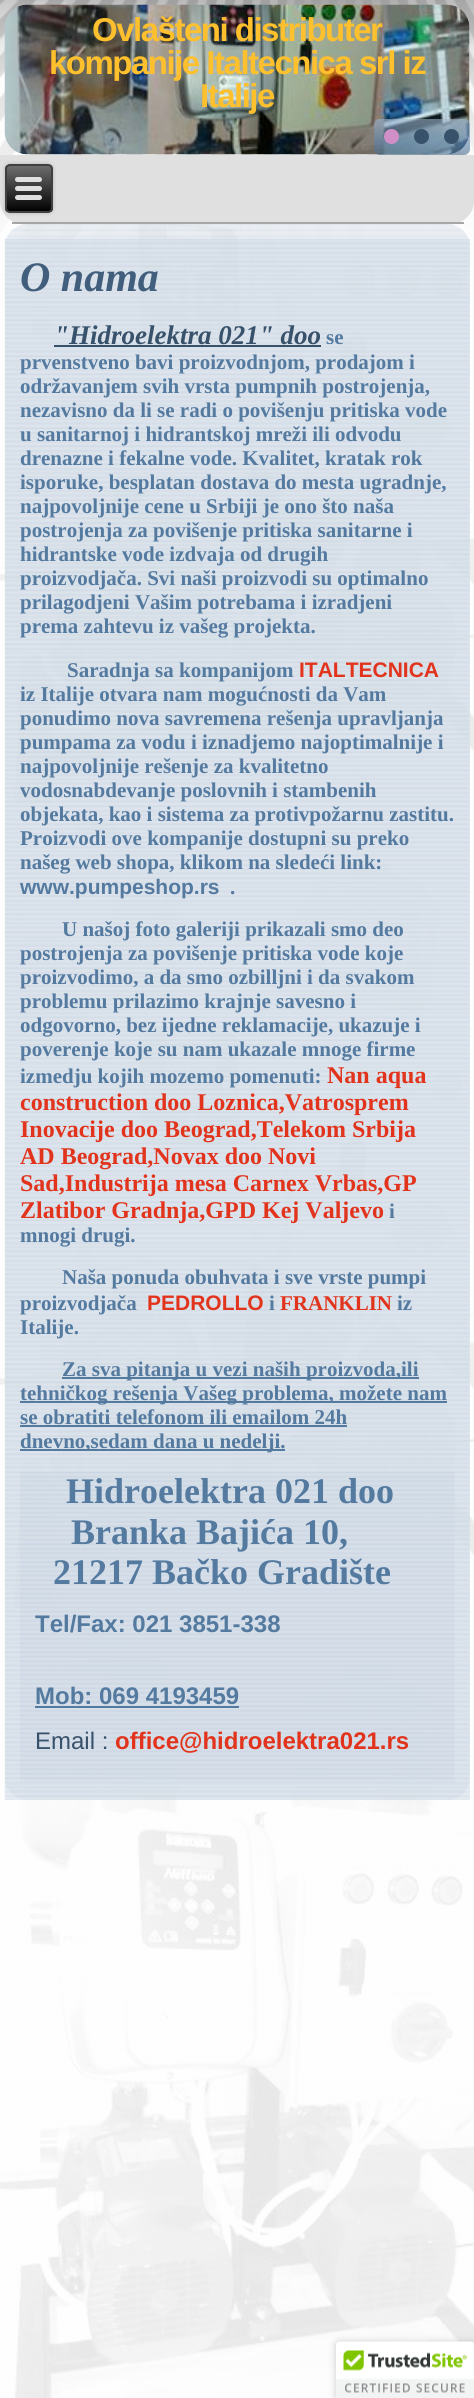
#include <cairo/cairo.h>
#include <math.h>
#include <stddef.h>

static cairo_t *cr;

static void use_color(int r, int g, int b) {
  cairo_set_source_rgb(cr, r / 255.0, g / 255.0, b / 255.0);
}

static void text(double x, double y, const char *s, const char *family, double size, int italic, int bold, int r, int g, int b) {
  cairo_select_font_face(cr, family, italic ? CAIRO_FONT_SLANT_ITALIC : CAIRO_FONT_SLANT_NORMAL,
    bold ? CAIRO_FONT_WEIGHT_BOLD : CAIRO_FONT_WEIGHT_NORMAL);
  cairo_set_font_size(cr, size);
  use_color(r, g, b);
  cairo_move_to(cr, x, y);
  cairo_show_text(cr, s);
}

static void spaced_text(double x, double y, const char *s, double letter, double word) {
  cairo_move_to(cr, x, y);
  while (*s) {
    char ch[5] = {0};
    int n = 0;
    do ch[n++] = *s++; while ((*s & 0xC0) == 0x80);
    cairo_show_text(cr, ch);
    cairo_rel_move_to(cr, letter + word * (*ch == ' '), 0);
  }
}

static void box(double x, double y, double w, double h, int r, int g, int b) {
  use_color(r, g, b);
  cairo_rectangle(cr, x, y, w, h);
  cairo_fill(cr);
}

static void round_rect(double x, double y, double w, double h, double r) {
  cairo_new_sub_path(cr);
  cairo_arc(cr, x + w - r, y + h - r, r, 0, M_PI / 2);
  cairo_arc(cr, x + r, y + h - r, r, M_PI / 2, M_PI);
  cairo_arc(cr, x + r, y + r, r, M_PI, 1.5 * M_PI);
  cairo_arc(cr, x + w - r, y + r, r, 1.5 * M_PI, 2 * M_PI);
  cairo_close_path(cr);
}

static void shadow(double x, double y, double w, double h, double r, double blur, double alpha) {
  cairo_push_group_with_content(cr, CAIRO_CONTENT_ALPHA);
  cairo_set_operator(cr, CAIRO_OPERATOR_SOURCE);
  for (int i = 15; i >= -15 && fmin(w, h) + blur * i / 3 > 0; i -= 2) {
    double e = blur * i / 6;
    cairo_set_source_rgba(cr, 0, 0, 0, alpha * erfc((i - 1) / 8.5) / 2);
    round_rect(x - e, y - e, w + 2 * e, h + 2 * e, fmax(0, fmin(r + e + blur * .6, fmin(w, h) / 2 + e)));
    cairo_fill(cr);
  }
  cairo_pattern_t *soft = cairo_pop_group(cr);
  cairo_mask(cr, soft);
  cairo_pattern_destroy(soft);
}

static void picture(const char *path, double x, double y, double w, double h) {
  cairo_surface_t *image = cairo_image_surface_create_from_png(path);
  cairo_save(cr);
  cairo_set_source_surface(cr, image, x, y);
  cairo_rectangle(cr, x, y, w, h);
  cairo_fill(cr);
  cairo_restore(cr);
  cairo_surface_destroy(image);
}

static void draw(void) {
  cairo_pattern_t *gradient;
  use_color(255, 255, 255);
  cairo_paint(cr);
  picture("img_01.png", 0, 0, 474, 2398);
  picture("img_02.png", 4, 4, 466, 151);
  gradient = cairo_pattern_create_linear(422, 119, 422, 155);
  cairo_pattern_add_color_stop_rgba(gradient, 0, 0.62, 0.71, 0.8, 0.6);
  cairo_pattern_add_color_stop_rgba(gradient, 0.7, 0.345, 0.498, 0.655, 0.6);
  cairo_pattern_add_color_stop_rgba(gradient, 1, 0.282, 0.412, 0.537, 0.6);
  cairo_set_source(cr, gradient);
  cairo_pattern_destroy(gradient);
  round_rect(374, 119, 96, 36, 6);
  cairo_fill(cr);
  use_color(208, 144, 199);
  cairo_arc(cr, 391.5, 136.5, 7.5, 0, 2 * M_PI);
  cairo_fill(cr);
  use_color(56, 82, 107);
  cairo_arc(cr, 421.5, 136.5, 7.5, 0, 2 * M_PI);
  cairo_fill(cr);
  cairo_arc(cr, 451.5, 136.5, 7.5, 0, 2 * M_PI);
  cairo_fill(cr);
  use_color(224, 224, 224);
  cairo_new_path(cr);
  cairo_move_to(cr, 0, 155);
  cairo_line_to(cr, 474, 155);
  cairo_line_to(cr, 474, 201);
  cairo_curve_to(cr, 474, 213.5, 463.5, 224, 451, 224);
  cairo_line_to(cr, 23, 224);
  cairo_curve_to(cr, 10.5, 224, 0, 213.5, 0, 201);
  cairo_close_path(cr);
  cairo_fill(cr);
  box(12, 222, 452, 2, 166, 166, 166);
  use_color(0, 0, 0);
  shadow(5, 164, 48, 49, 5, 2, 0.2);
  cairo_save(cr);
  round_rect(5, 164, 48, 49, 5);
  cairo_clip(cr);
  gradient = cairo_pattern_create_linear(28, 165, 29, 212);
  cairo_pattern_add_color_stop_rgba(gradient, 0, 0.439, 0.439, 0.439, 1);
  cairo_pattern_add_color_stop_rgba(gradient, 1, 0, 0, 0, 1);
  cairo_set_source(cr, gradient);
  cairo_pattern_destroy(gradient);
  cairo_rectangle(cr, 5, 165, 48, 47);
  cairo_fill(cr);
  cairo_restore(cr);
  round_rect(6, 165, 46, 47, 4);
  use_color(64, 64, 64);
  cairo_stroke(cr);
  use_color(224, 224, 224);
  round_rect(15, 177, 27, 5, 2.5);
  cairo_fill(cr);
  round_rect(15, 186, 27, 5, 2.5);
  cairo_fill(cr);
  round_rect(15, 195, 27, 5, 2.5);
  cairo_fill(cr);
  cairo_set_source_rgba(cr, 0.886, 0.91, 0.933, 0.6);
  round_rect(5, 224, 465, 1576, 23);
  cairo_fill(cr);
  picture("img_03.png", 5, 224, 464, 1574);
  cairo_set_source_rgba(cr, 0.831, 0.871, 0.91, 0.5);
  cairo_rectangle(cr, 5, 239, 465, 1561);
  cairo_fill(cr);
  picture("img_04.png", 4, 238, 466, 1562);
  box(54, 345, 267, 2, 56, 82, 107);
  box(62, 1377, 357, 2, 84, 122, 160);
  box(20, 1401, 427, 2, 84, 122, 160);
  box(20, 1425, 327, 2, 84, 122, 160);
  box(20, 1449, 265, 2, 84, 122, 160);
  cairo_set_source_rgba(cr, 0.831, 0.871, 0.91, 0.5);
  cairo_rectangle(cr, 20, 1473, 435, 309);
  cairo_fill(cr);
  picture("img_05.png", 20, 1472, 434, 307);
  box(35, 1706, 204, 2, 84, 122, 160);
  use_color(0, 0, 0);
  shadow(336, 2342, 138, 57, 3, 4, 0.2);
  use_color(255, 255, 255);
  cairo_new_path(cr);
  cairo_move_to(cr, 339, 2342);
  cairo_line_to(cr, 474, 2342);
  cairo_line_to(cr, 474, 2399);
  cairo_line_to(cr, 336, 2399);
  cairo_line_to(cr, 336, 2345);
  cairo_curve_to(cr, 336, 2343.5, 337.5, 2342, 339, 2342);
  cairo_close_path(cr);
  cairo_fill(cr);
  picture("img_06.png", 336, 2341, 138, 57);
  cairo_select_font_face(cr, "Liberation Sans", CAIRO_FONT_SLANT_NORMAL, CAIRO_FONT_WEIGHT_BOLD);
  cairo_set_font_size(cr, 33);
  use_color(255, 192, 46);
  spaced_text(92, 41, "Ovlašteni distributer", -1.5, 0);
  spaced_text(49, 74, "kompanije Italtecnica srl iz", -1.5, 0);
  spaced_text(200, 107, "Italije", -1.5, 0);
  text(20, 291, "O nama", "Liberation Serif", 42, 1, 1, 65, 94, 124);
  text(54, 344, "\"Hidroelektra 021\" doo", "Liberation Serif", 27, 1, 1, 56, 82, 107);
  text(326, 344, "se", "Liberation Serif", 21, 0, 1, 84, 122, 160);
  text(20, 369, "prvenstveno bavi proizvodnjom, prodajom i", "Liberation Serif", 21, 0, 1, 84, 122, 160);
  text(20, 393, "održavanjem svih vrsta pumpnih postrojenja,", "Liberation Serif", 21, 0, 1, 84, 122, 160);
  text(20, 417, "nezavisno da li se radi o povišenju pritiska vode", "Liberation Serif", 21, 0, 1, 84, 122, 160);
  text(20, 441, "u sanitarnoj i hidrantskoj mreži ili odvodu", "Liberation Serif", 21, 0, 1, 84, 122, 160);
  text(20, 465, "drenazne i fekalne vode. Kvalitet, kratak rok", "Liberation Serif", 21, 0, 1, 84, 122, 160);
  text(20, 489, "isporuke, besplatan dostava do mesta ugradnje,", "Liberation Serif", 21, 0, 1, 84, 122, 160);
  text(20, 513, "najpovoljnije cene u Srbiji je ono što naša", "Liberation Serif", 21, 0, 1, 84, 122, 160);
  text(20, 537, "postrojenja za povišenje pritiska sanitarne i", "Liberation Serif", 21, 0, 1, 84, 122, 160);
  text(20, 561, "hidrantske vode izdvaja od drugih", "Liberation Serif", 21, 0, 1, 84, 122, 160);
  text(20, 585, "proizvodjača. Svi naši proizvodi su optimalno", "Liberation Serif", 21, 0, 1, 84, 122, 160);
  text(20, 609, "prilagodjeni Vašim potrebama i izradjeni", "Liberation Serif", 21, 0, 1, 84, 122, 160);
  text(20, 633, "prema zahtevu iz vašeg projekta.", "Liberation Serif", 21, 0, 1, 84, 122, 160);
  text(67, 677, "Saradnja sa kompanijom", "Liberation Serif", 21, 0, 1, 84, 122, 160);
  text(299, 677, "ITALTECNICA", "Liberation Sans", 21, 0, 1, 226, 52, 29);
  text(20, 701, "iz Italije otvara nam mogućnosti da Vam", "Liberation Serif", 21, 0, 1, 84, 122, 160);
  text(20, 725, "ponudimo nova savremena rešenja upravljanja", "Liberation Serif", 21, 0, 1, 84, 122, 160);
  text(20, 749, "pumpama za vodu i iznadjemo najoptimalnije i", "Liberation Serif", 21, 0, 1, 84, 122, 160);
  text(20, 773, "najpovoljnije rešenje za kvalitetno", "Liberation Serif", 21, 0, 1, 84, 122, 160);
  text(20, 797, "vodosnabdevanje poslovnih i stambenih", "Liberation Serif", 21, 0, 1, 84, 122, 160);
  text(20, 821, "objekata, kao i sistema za protivpožarnu zastitu.", "Liberation Serif", 21, 0, 1, 84, 122, 160);
  text(20, 845, "Proizvodi ove kompanije dostupni su preko", "Liberation Serif", 21, 0, 1, 84, 122, 160);
  text(20, 869, "našeg web shopa, klikom na sledeći link:", "Liberation Serif", 21, 0, 1, 84, 122, 160);
  text(20, 894, "www.pumpeshop.rs", "Liberation Sans", 21, 0, 1, 84, 122, 160);
  text(230, 894, ".", "Liberation Serif", 21, 0, 1, 84, 122, 160);
  text(62, 936, "U našoj foto galeriji prikazali smo deo", "Liberation Serif", 21, 0, 1, 84, 122, 160);
  text(20, 960, "postrojenja za povišenje pritiska vode koje", "Liberation Serif", 21, 0, 1, 84, 122, 160);
  text(20, 984, "proizvodimo, a da smo ozbilljni i da svakom", "Liberation Serif", 21, 0, 1, 84, 122, 160);
  text(20, 1008, "problemu prilazimo krajnje savesno i", "Liberation Serif", 21, 0, 1, 84, 122, 160);
  text(20, 1032, "odgovorno, bez ijedne reklamacije, ukazuje i", "Liberation Serif", 21, 0, 1, 84, 122, 160);
  text(20, 1056, "poverenje koje su nam ukazale mnoge firme", "Liberation Serif", 21, 0, 1, 84, 122, 160);
  text(20, 1083, "izmedju kojih mozemo pomenuti:", "Liberation Serif", 21, 0, 1, 84, 122, 160);
  text(327, 1083, "Nan aqua", "Liberation Serif", 24, 0, 1, 226, 52, 29);
  text(20, 1110, "construction doo Loznica,Vatrosprem", "Liberation Serif", 24, 0, 1, 226, 52, 29);
  text(20, 1137, "Inovacije doo Beograd,Telekom Srbija", "Liberation Serif", 24, 0, 1, 226, 52, 29);
  text(20, 1164, "AD Beograd,Novax doo Novi", "Liberation Serif", 24, 0, 1, 226, 52, 29);
  text(20, 1191, "Sad,Industrija mesa Carnex Vrbas,GP", "Liberation Serif", 24, 0, 1, 226, 52, 29);
  text(20, 1218, "Zlatibor Gradnja,GPD Kej Valjevo", "Liberation Serif", 24, 0, 1, 226, 52, 29);
  text(389, 1218, "i", "Liberation Serif", 21, 0, 1, 84, 122, 160);
  text(20, 1242, "mnogi drugi.", "Liberation Serif", 21, 0, 1, 84, 122, 160);
  text(62, 1284, "Naša ponuda obuhvata i sve vrste pumpi", "Liberation Serif", 21, 0, 1, 84, 122, 160);
  text(20, 1310, "proizvodjača", "Liberation Serif", 21, 0, 1, 84, 122, 160);
  text(147, 1310, "PEDROLLO", "Liberation Sans", 21, 0, 1, 226, 52, 29);
  text(269, 1310, "i", "Liberation Serif", 21, 0, 1, 84, 122, 160);
  text(280, 1310, "FRANKLIN", "Liberation Serif", 21, 0, 1, 226, 52, 29);
  text(397, 1310, "iz", "Liberation Serif", 21, 0, 1, 84, 122, 160);
  text(20, 1334, "Italije.", "Liberation Serif", 21, 0, 1, 84, 122, 160);
  text(62, 1376, "Za sva pitanja u vezi naših proizvoda,ili", "Liberation Serif", 21, 0, 1, 84, 122, 160);
  text(20, 1400, "tehničkog rešenja Vašeg problema, možete nam", "Liberation Serif", 21, 0, 1, 84, 122, 160);
  text(20, 1424, "se obratiti telefonom ili emailom 24h", "Liberation Serif", 21, 0, 1, 84, 122, 160);
  text(20, 1448, "dnevno,sedam dana u nedelji.", "Liberation Serif", 21, 0, 1, 84, 122, 160);
  text(66, 1503, "Hidroelektra 021 doo", "Liberation Serif", 36, 0, 1, 84, 122, 160);
  text(71, 1544, "Branka Bajića 10,", "Liberation Serif", 36, 0, 1, 84, 122, 160);
  text(53, 1584, "21217 Bačko Gradište", "Liberation Serif", 36, 0, 1, 84, 122, 160);
  text(35, 1632, "Tel/Fax: 021 3851-338", "Liberation Sans", 24, 0, 1, 84, 122, 160);
  text(35, 1704, "Mob: 069 4193459", "Liberation Sans", 24, 0, 1, 84, 122, 160);
  text(35, 1749, "Email :", "Liberation Sans", 24, 0, 0, 56, 82, 107);
  text(115, 1749, "office@hidroelektra021.rs", "Liberation Sans", 24, 0, 1, 226, 52, 29);
}

int main(void) {
  cairo_surface_t *surface = cairo_image_surface_create(CAIRO_FORMAT_RGB24, 474, 2398);
  cr = cairo_create(surface);
  cairo_font_options_t *options = cairo_font_options_create();
  cairo_font_options_set_hint_metrics(options, CAIRO_HINT_METRICS_OFF);
  cairo_font_options_set_hint_style(options, CAIRO_HINT_STYLE_NONE);
  cairo_set_font_options(cr, options);
  cairo_set_miter_limit(cr, 4);
  draw();
  cairo_surface_write_to_png(surface, "out.png");
  cairo_font_options_destroy(options);
  cairo_destroy(cr);
  cairo_surface_destroy(surface);
  return 0;
}
